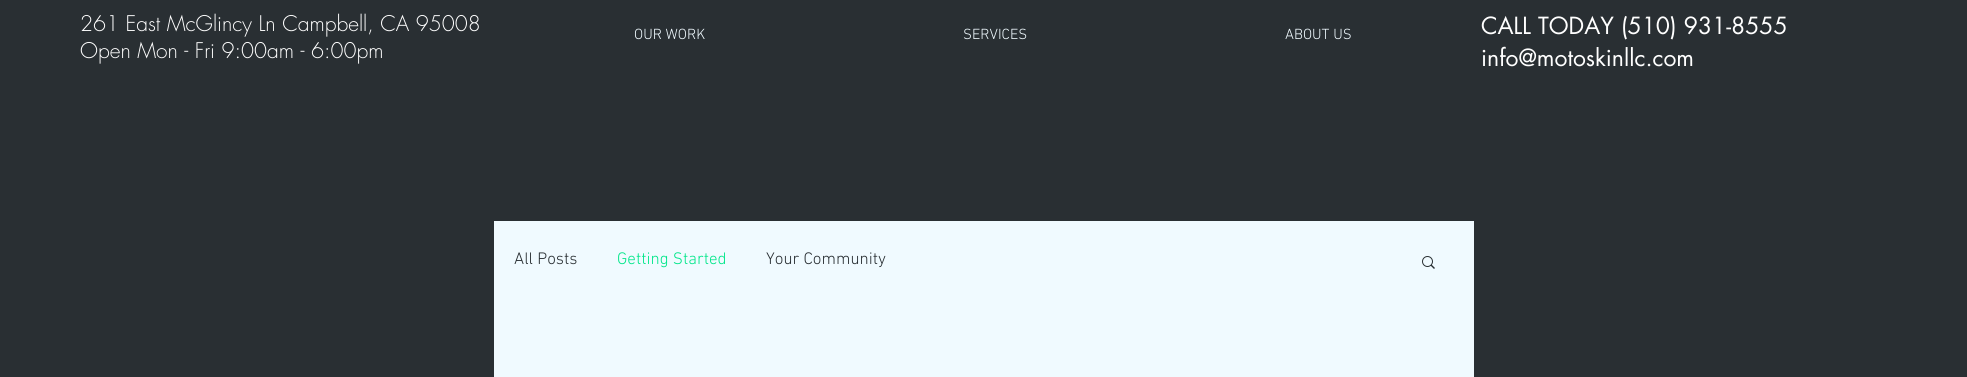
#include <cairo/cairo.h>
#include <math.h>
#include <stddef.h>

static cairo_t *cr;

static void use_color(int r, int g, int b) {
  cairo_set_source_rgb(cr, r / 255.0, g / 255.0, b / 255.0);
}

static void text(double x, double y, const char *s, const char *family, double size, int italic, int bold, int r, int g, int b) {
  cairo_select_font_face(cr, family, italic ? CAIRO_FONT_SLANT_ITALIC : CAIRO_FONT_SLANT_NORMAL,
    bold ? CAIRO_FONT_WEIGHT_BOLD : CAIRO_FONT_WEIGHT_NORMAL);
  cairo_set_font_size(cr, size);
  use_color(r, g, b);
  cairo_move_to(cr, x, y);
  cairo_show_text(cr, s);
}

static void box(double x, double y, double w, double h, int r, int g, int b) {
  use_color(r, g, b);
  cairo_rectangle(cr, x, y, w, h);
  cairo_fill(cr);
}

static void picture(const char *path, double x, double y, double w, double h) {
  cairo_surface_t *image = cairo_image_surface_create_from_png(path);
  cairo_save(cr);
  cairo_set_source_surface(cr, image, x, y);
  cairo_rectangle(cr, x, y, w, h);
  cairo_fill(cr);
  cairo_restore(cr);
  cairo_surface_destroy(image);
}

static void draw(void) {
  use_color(41, 47, 51);
  cairo_paint(cr);
  box(494, 221, 980, 156, 240, 250, 255);
  picture("img_01.png", 1422, 256, 13, 13);
  text(80, 31, "261 East McGlincy Ln Campbell, CA 95008", "futura Light", 21, 0, 0, 255, 255, 255);
  text(80, 58, "Open Mon - Fri 9:00am - 6:00pm", "futura Light", 21, 0, 0, 255, 255, 255);
  text(634, 39, "OUR WORK", "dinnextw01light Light", 15, 0, 0, 240, 250, 255);
  text(963, 39, "SERVICES", "dinnextw01light Light", 15, 0, 0, 240, 250, 255);
  text(1285, 39, "ABOUT US", "dinnextw01light Light", 15, 0, 0, 240, 250, 255);
  text(1481, 34, "CALL TODAY (510) 931-8555", "futura", 23, 0, 0, 255, 255, 255);
  text(1481, 66, "info@motoskinllc.com", "futura", 23, 0, 0, 255, 255, 255);
  text(514, 264, "All Posts", "dinnextw01light Light", 17, 0, 0, 41, 47, 51);
  text(617, 264, "Getting Started", "dinnextw01light Light", 17, 0, 0, 0, 230, 137);
  text(766, 264, "Your Community", "dinnextw01light Light", 17, 0, 0, 41, 47, 51);
}

int main(void) {
  cairo_surface_t *surface = cairo_image_surface_create(CAIRO_FORMAT_RGB24, 1967, 377);
  cr = cairo_create(surface);
  cairo_font_options_t *options = cairo_font_options_create();
  cairo_font_options_set_hint_metrics(options, CAIRO_HINT_METRICS_OFF);
  cairo_font_options_set_hint_style(options, CAIRO_HINT_STYLE_NONE);
  cairo_set_font_options(cr, options);
  cairo_set_miter_limit(cr, 4);
  draw();
  cairo_surface_write_to_png(surface, "out.png");
  cairo_font_options_destroy(options);
  cairo_destroy(cr);
  cairo_surface_destroy(surface);
  return 0;
}
